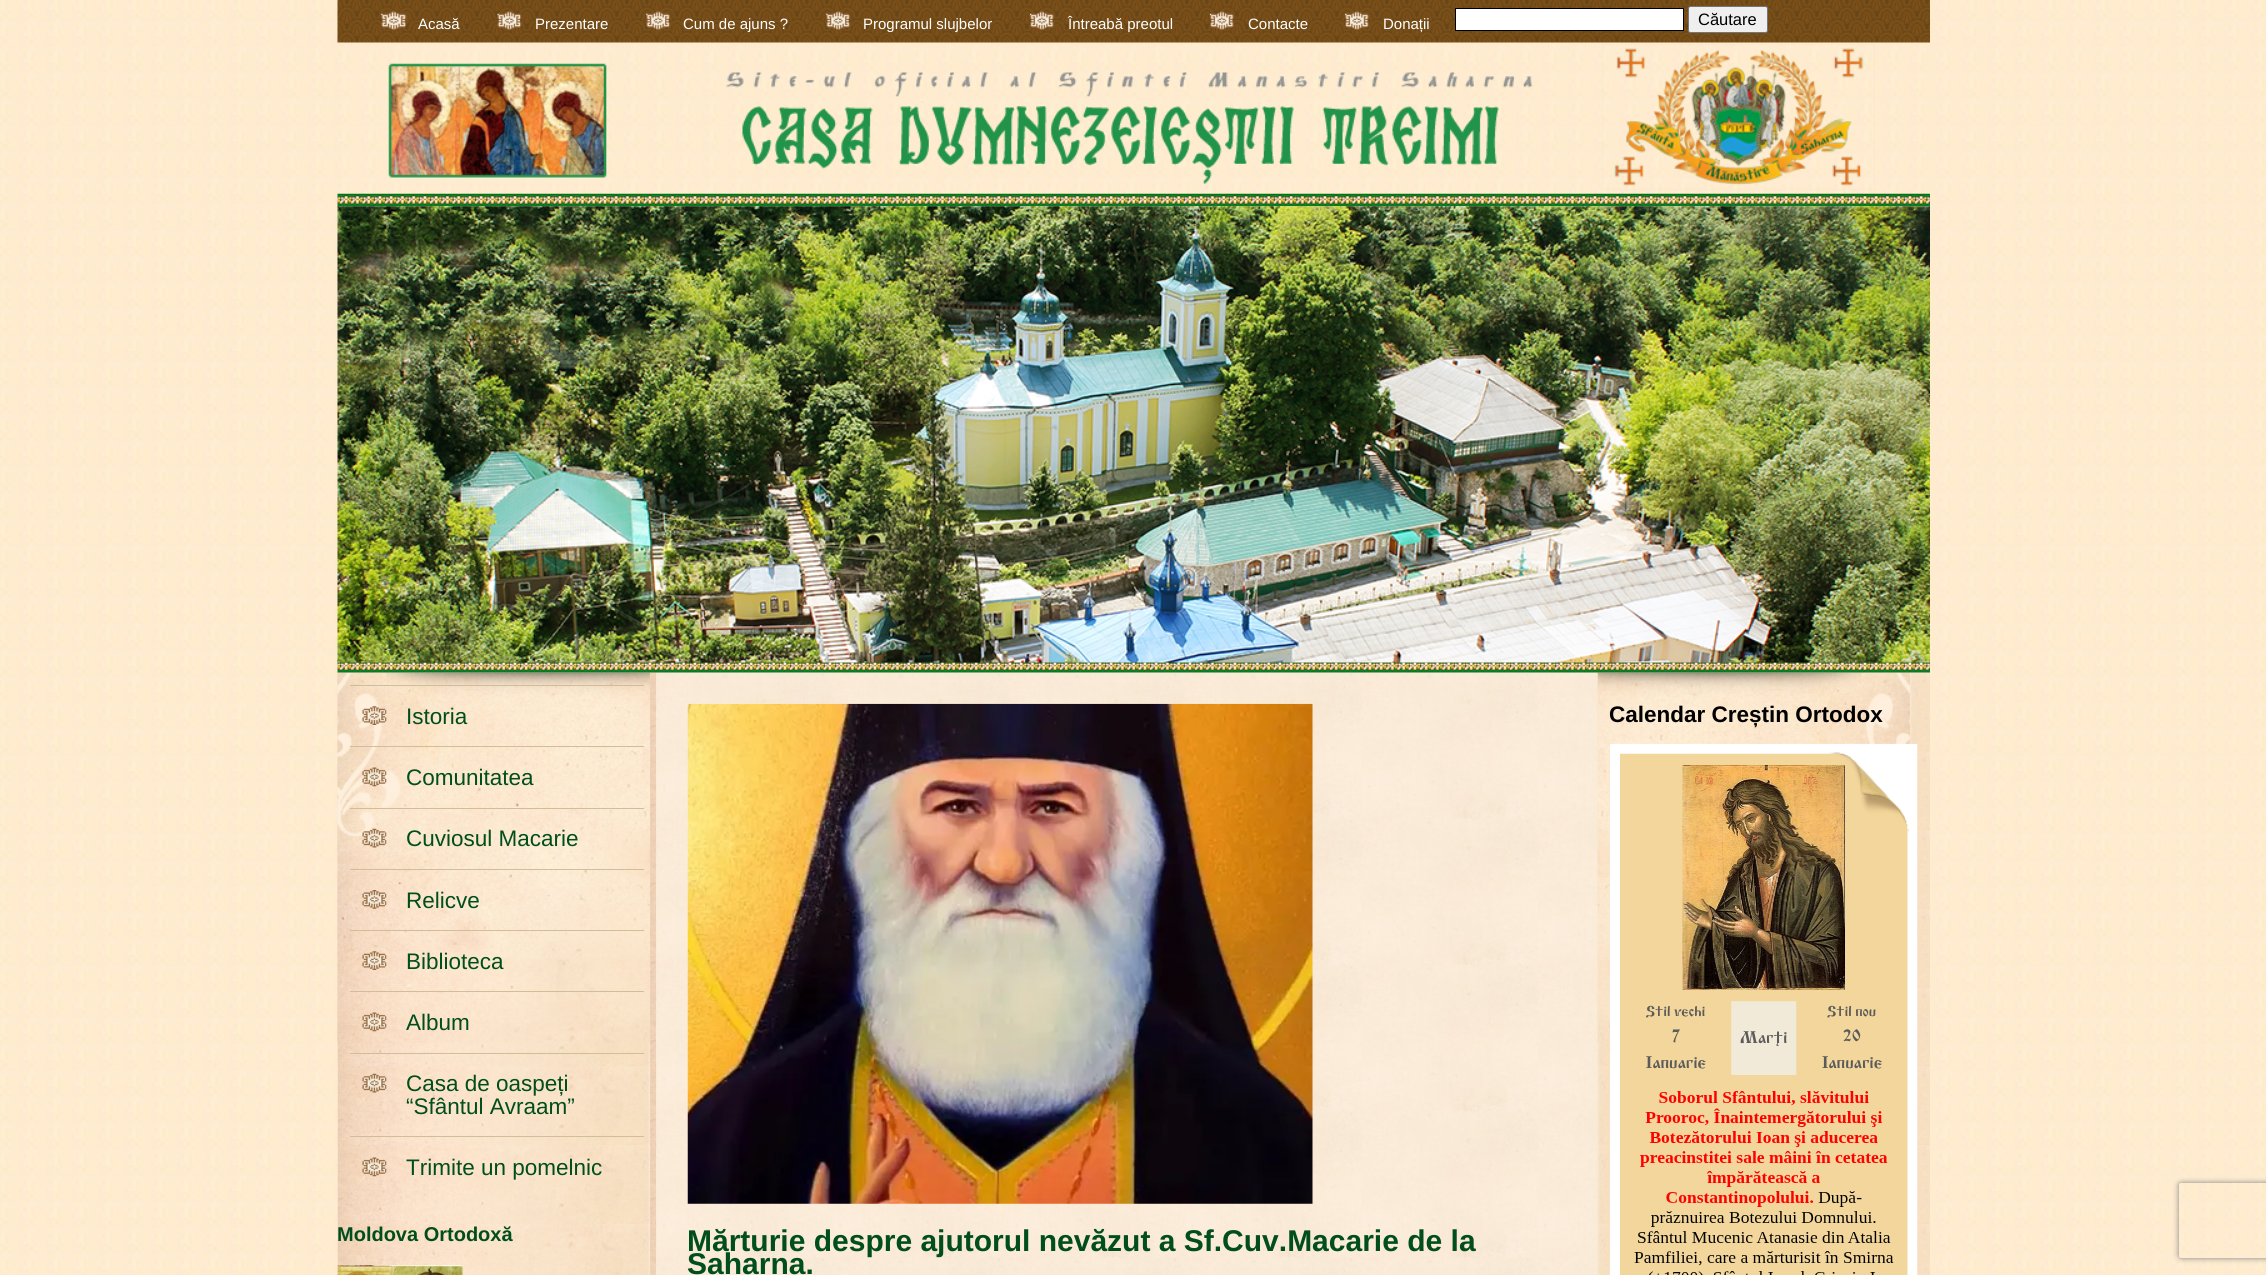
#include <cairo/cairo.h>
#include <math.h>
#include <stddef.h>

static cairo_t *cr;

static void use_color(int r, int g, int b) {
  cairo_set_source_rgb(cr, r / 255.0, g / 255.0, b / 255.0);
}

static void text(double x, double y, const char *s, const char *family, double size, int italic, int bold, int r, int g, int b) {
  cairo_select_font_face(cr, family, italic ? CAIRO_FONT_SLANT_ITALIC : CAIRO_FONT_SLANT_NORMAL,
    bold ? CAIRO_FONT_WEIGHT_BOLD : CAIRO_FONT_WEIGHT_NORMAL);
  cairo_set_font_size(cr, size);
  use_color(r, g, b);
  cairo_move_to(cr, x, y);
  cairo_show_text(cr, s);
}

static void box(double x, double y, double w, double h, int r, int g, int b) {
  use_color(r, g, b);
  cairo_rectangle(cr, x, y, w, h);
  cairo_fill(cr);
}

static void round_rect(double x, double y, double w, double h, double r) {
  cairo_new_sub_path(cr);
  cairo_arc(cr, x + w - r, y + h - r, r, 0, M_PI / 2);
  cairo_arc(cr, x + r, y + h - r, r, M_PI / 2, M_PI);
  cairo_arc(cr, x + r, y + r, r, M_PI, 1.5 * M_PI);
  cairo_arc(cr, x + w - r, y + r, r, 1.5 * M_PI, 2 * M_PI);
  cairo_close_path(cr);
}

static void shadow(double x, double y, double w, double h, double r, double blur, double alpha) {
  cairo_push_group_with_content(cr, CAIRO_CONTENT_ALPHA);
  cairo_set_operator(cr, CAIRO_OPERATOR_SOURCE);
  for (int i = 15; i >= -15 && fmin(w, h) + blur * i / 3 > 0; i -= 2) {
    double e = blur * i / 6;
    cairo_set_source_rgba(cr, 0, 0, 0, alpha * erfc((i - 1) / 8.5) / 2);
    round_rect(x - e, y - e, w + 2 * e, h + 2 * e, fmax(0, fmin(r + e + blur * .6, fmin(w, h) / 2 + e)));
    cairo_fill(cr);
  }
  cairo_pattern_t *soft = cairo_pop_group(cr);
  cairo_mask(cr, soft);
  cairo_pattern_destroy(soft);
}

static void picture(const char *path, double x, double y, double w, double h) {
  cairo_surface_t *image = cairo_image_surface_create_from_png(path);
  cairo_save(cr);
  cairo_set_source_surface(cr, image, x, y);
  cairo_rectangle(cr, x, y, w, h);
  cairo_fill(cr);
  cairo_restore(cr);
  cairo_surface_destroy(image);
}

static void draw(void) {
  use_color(255, 255, 255);
  cairo_paint(cr);
  picture("img_01.png", 0, 0, 2266, 1275);
  picture("img_13.png", 337, 672, 320, 603);
  picture("img_14.png", 337, 672, 313, 371);
  picture("img_26.png", 1597, 672, 333, 603);
  picture("img_27.png", 1597, 672, 313, 371);
  picture("img_24.png", 656, 672, 942, 603);
  picture("img_02.png", 337, 660, 1593, 13);
  picture("img_03.png", 337, 0, 1593, 43);
  picture("img_04.png", 381, 11, 26, 19);
  picture("img_05.png", 497, 11, 25, 19);
  picture("img_06.png", 646, 11, 24, 19);
  picture("img_07.png", 826, 11, 24, 19);
  picture("img_08.png", 1030, 11, 24, 19);
  picture("img_08.png", 1210, 11, 24, 19);
  picture("img_09.png", 1345, 11, 24, 19);
  use_color(255, 255, 255);
  cairo_rectangle(cr, 1455.5, 8.5, 228, 22);
  cairo_fill_preserve(cr);
  use_color(0, 0, 0);
  cairo_set_line_width(cr, 1);
  cairo_stroke(cr);
  use_color(239, 239, 239);
  round_rect(1688.5, 6.5, 79, 26, 2);
  cairo_fill_preserve(cr);
  use_color(118, 118, 118);
  cairo_stroke(cr);
  picture("img_10.png", 337, 193, 1593, 14);
  picture("img_11.png", 388, 44, 1487, 146);
  picture("img_12.png", 337, 206, 1593, 457);
  picture("img_15.png", 362, 706, 25, 19);
  box(350, 685, 294, 1, 210, 189, 154);
  picture("img_16.png", 362, 767, 25, 20);
  box(350, 746, 294, 1, 210, 189, 154);
  picture("img_17.png", 362, 828, 25, 20);
  box(350, 808, 294, 1, 210, 189, 154);
  picture("img_18.png", 362, 890, 25, 19);
  box(350, 869, 294, 1, 210, 189, 154);
  picture("img_19.png", 362, 951, 25, 19);
  box(350, 930, 294, 1, 210, 189, 154);
  picture("img_20.png", 362, 1012, 25, 20);
  box(350, 991, 294, 1, 210, 189, 154);
  picture("img_21.png", 362, 1073, 25, 20);
  box(350, 1053, 294, 1, 210, 189, 154);
  picture("img_22.png", 362, 1157, 25, 20);
  box(350, 1136, 294, 1, 210, 189, 154);
  picture("img_23.png", 337, 1265, 126, 10);
  picture("img_25.png", 687, 703, 626, 501);
  picture("img_28.png", 1610, 743, 308, 532);
  cairo_save(cr);
  cairo_set_fill_rule(cr, CAIRO_FILL_RULE_EVEN_ODD);
  cairo_new_path(cr);
  cairo_move_to(cr, 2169, 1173);
  cairo_line_to(cr, 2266, 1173);
  cairo_line_to(cr, 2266, 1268);
  cairo_line_to(cr, 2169, 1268);
  cairo_close_path(cr);
  cairo_move_to(cr, 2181.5, 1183);
  cairo_line_to(cr, 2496.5, 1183);
  cairo_curve_to(cr, 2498, 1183, 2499, 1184, 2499, 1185.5);
  cairo_line_to(cr, 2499, 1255.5);
  cairo_curve_to(cr, 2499, 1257, 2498, 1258, 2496.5, 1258);
  cairo_line_to(cr, 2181.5, 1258);
  cairo_curve_to(cr, 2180, 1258, 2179, 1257, 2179, 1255.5);
  cairo_line_to(cr, 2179, 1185.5);
  cairo_curve_to(cr, 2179, 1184, 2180, 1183, 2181.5, 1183);
  cairo_close_path(cr);
  cairo_clip(cr);
  use_color(128, 128, 128);
  shadow(2179, 1183, 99, 75, 2.5, 3, 1);
  cairo_restore(cr);
  text(418, 29, "Acasă", "Liberation Sans", 15, 0, 0, 255, 255, 255);
  text(535, 29, "Prezentare", "Liberation Sans", 15, 0, 0, 255, 255, 255);
  text(683, 29, "Cum de ajuns ?", "Liberation Sans", 15, 0, 0, 255, 255, 255);
  text(863, 29, "Programul slujbelor", "Liberation Sans", 15, 0, 0, 255, 255, 255);
  text(1068, 29, "Întreabă preotul", "Liberation Sans", 15, 0, 0, 255, 255, 255);
  text(1248, 29, "Contacte", "Liberation Sans", 15, 0, 0, 255, 255, 255);
  text(1383, 29, "Donații", "Liberation Sans", 15, 0, 0, 255, 255, 255);
  text(1698, 25, "Căutare", "Liberation Sans", 16.5, 0, 0, 0, 0, 0);
  text(406, 724, "Istoria", "Liberation Sans", 22.5, 0, 0, 0, 78, 27);
  text(406, 785, "Comunitatea", "Liberation Sans", 22.5, 0, 0, 0, 78, 27);
  text(406, 846, "Cuviosul Macarie", "Liberation Sans", 22.5, 0, 0, 0, 78, 27);
  text(406, 908, "Relicve", "Liberation Sans", 22.5, 0, 0, 0, 78, 27);
  text(406, 969, "Biblioteca", "Liberation Sans", 22.5, 0, 0, 0, 78, 27);
  text(406, 1030, "Album", "Liberation Sans", 22.5, 0, 0, 0, 78, 27);
  text(406, 1091, "Casa de oaspeți", "Liberation Sans", 22.5, 0, 0, 0, 78, 27);
  text(406, 1114, "“Sfântul Avraam”", "Liberation Sans", 22.5, 0, 0, 0, 78, 27);
  text(406, 1175, "Trimite un pomelnic", "Liberation Sans", 22.5, 0, 0, 0, 78, 27);
  text(337, 1241, "Moldova Ortodoxă", "Liberation Sans", 20, 0, 1, 0, 78, 27);
  text(687, 1251, "Mărturie despre ajutorul nevăzut a Sf.Cuv.Macarie de la", "Liberation Sans", 30, 0, 1, 0, 78, 27);
  text(687, 1274, "Saharna.", "Liberation Sans", 30, 0, 1, 0, 78, 27);
  text(1609, 722, "Calendar Creștin Ortodox", "Liberation Sans", 22.5, 0, 1, 0, 0, 0);
}

int main(void) {
  cairo_surface_t *surface = cairo_image_surface_create(CAIRO_FORMAT_RGB24, 2266, 1275);
  cr = cairo_create(surface);
  cairo_font_options_t *options = cairo_font_options_create();
  cairo_font_options_set_hint_metrics(options, CAIRO_HINT_METRICS_OFF);
  cairo_font_options_set_hint_style(options, CAIRO_HINT_STYLE_NONE);
  cairo_set_font_options(cr, options);
  cairo_set_miter_limit(cr, 4);
  draw();
  cairo_surface_write_to_png(surface, "out.png");
  cairo_font_options_destroy(options);
  cairo_destroy(cr);
  cairo_surface_destroy(surface);
  return 0;
}
